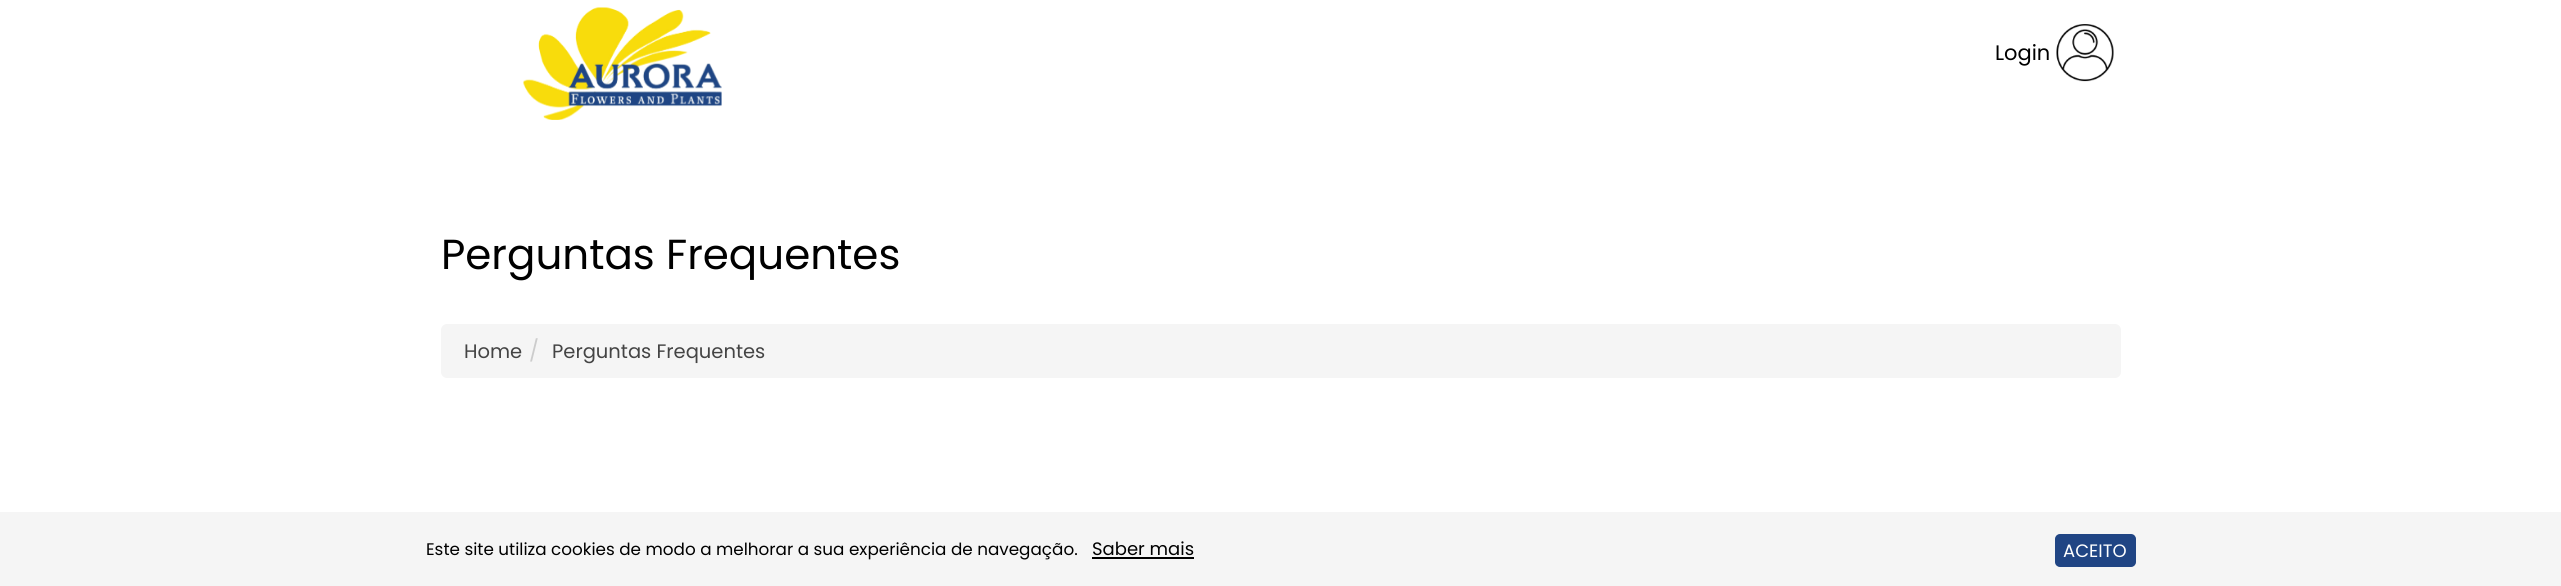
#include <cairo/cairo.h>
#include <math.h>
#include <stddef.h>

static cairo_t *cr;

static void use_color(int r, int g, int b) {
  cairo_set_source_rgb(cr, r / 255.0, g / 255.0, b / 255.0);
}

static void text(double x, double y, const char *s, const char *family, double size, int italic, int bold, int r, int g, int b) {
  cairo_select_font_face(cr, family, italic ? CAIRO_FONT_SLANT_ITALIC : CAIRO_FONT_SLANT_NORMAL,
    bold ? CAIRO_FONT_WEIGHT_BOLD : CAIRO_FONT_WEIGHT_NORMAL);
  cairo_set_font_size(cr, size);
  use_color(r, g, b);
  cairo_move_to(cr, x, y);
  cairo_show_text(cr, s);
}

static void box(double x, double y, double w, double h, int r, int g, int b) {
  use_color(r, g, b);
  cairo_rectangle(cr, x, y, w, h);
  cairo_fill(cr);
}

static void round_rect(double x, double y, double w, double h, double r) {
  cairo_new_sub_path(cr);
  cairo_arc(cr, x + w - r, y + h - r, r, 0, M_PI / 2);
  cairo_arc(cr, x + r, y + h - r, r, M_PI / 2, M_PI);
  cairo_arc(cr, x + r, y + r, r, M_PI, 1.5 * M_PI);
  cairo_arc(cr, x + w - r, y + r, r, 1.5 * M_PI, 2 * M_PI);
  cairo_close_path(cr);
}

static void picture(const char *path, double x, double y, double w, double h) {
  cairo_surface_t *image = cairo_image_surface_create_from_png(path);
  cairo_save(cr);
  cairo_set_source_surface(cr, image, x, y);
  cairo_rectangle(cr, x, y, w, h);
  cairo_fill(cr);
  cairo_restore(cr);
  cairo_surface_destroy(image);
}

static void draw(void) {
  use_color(255, 255, 255);
  cairo_paint(cr);
  picture("img_01.png", 523, 7, 199, 113);
  picture("img_02.png", 2056, 24, 58, 58);
  use_color(245, 245, 245);
  round_rect(441, 324, 1680, 54, 6);
  cairo_fill(cr);
  box(0, 512, 2561, 74, 245, 245, 245);
  box(1092, 557, 102, 2, 0, 0, 0);
  use_color(32, 69, 132);
  round_rect(2056, 535, 79, 31, 4);
  cairo_fill_preserve(cr);
  cairo_stroke(cr);
  text(1995, 60, "Login", "Poppins", 21, 0, 0, 0, 0, 0);
  text(441, 269, "Perguntas Frequentes", "Poppins", 42, 0, 0, 0, 0, 0);
  text(464, 358, "Home", "Poppins", 19.5, 0, 0, 68, 68, 68);
  text(529, 358, "/", "Poppins", 21, 0, 0, 204, 204, 204);
  text(552, 358, "Perguntas Frequentes", "Poppins", 19.5, 0, 0, 68, 68, 68);
  text(426, 555, "Este site utiliza cookies de modo a melhorar a sua experiência de navegação.", "Poppins", 16.8, 0, 0, 0, 0, 0);
  text(1092, 555, "Saber mais", "Poppins", 18, 0, 0, 0, 0, 0);
  text(2063, 557, "ACEITO", "Poppins", 18, 0, 0, 255, 255, 255);
}

int main(void) {
  cairo_surface_t *surface = cairo_image_surface_create(CAIRO_FORMAT_RGB24, 2561, 586);
  cr = cairo_create(surface);
  cairo_font_options_t *options = cairo_font_options_create();
  cairo_font_options_set_hint_metrics(options, CAIRO_HINT_METRICS_OFF);
  cairo_font_options_set_hint_style(options, CAIRO_HINT_STYLE_NONE);
  cairo_set_font_options(cr, options);
  cairo_set_miter_limit(cr, 4);
  draw();
  cairo_surface_write_to_png(surface, "out.png");
  cairo_font_options_destroy(options);
  cairo_destroy(cr);
  cairo_surface_destroy(surface);
  return 0;
}
